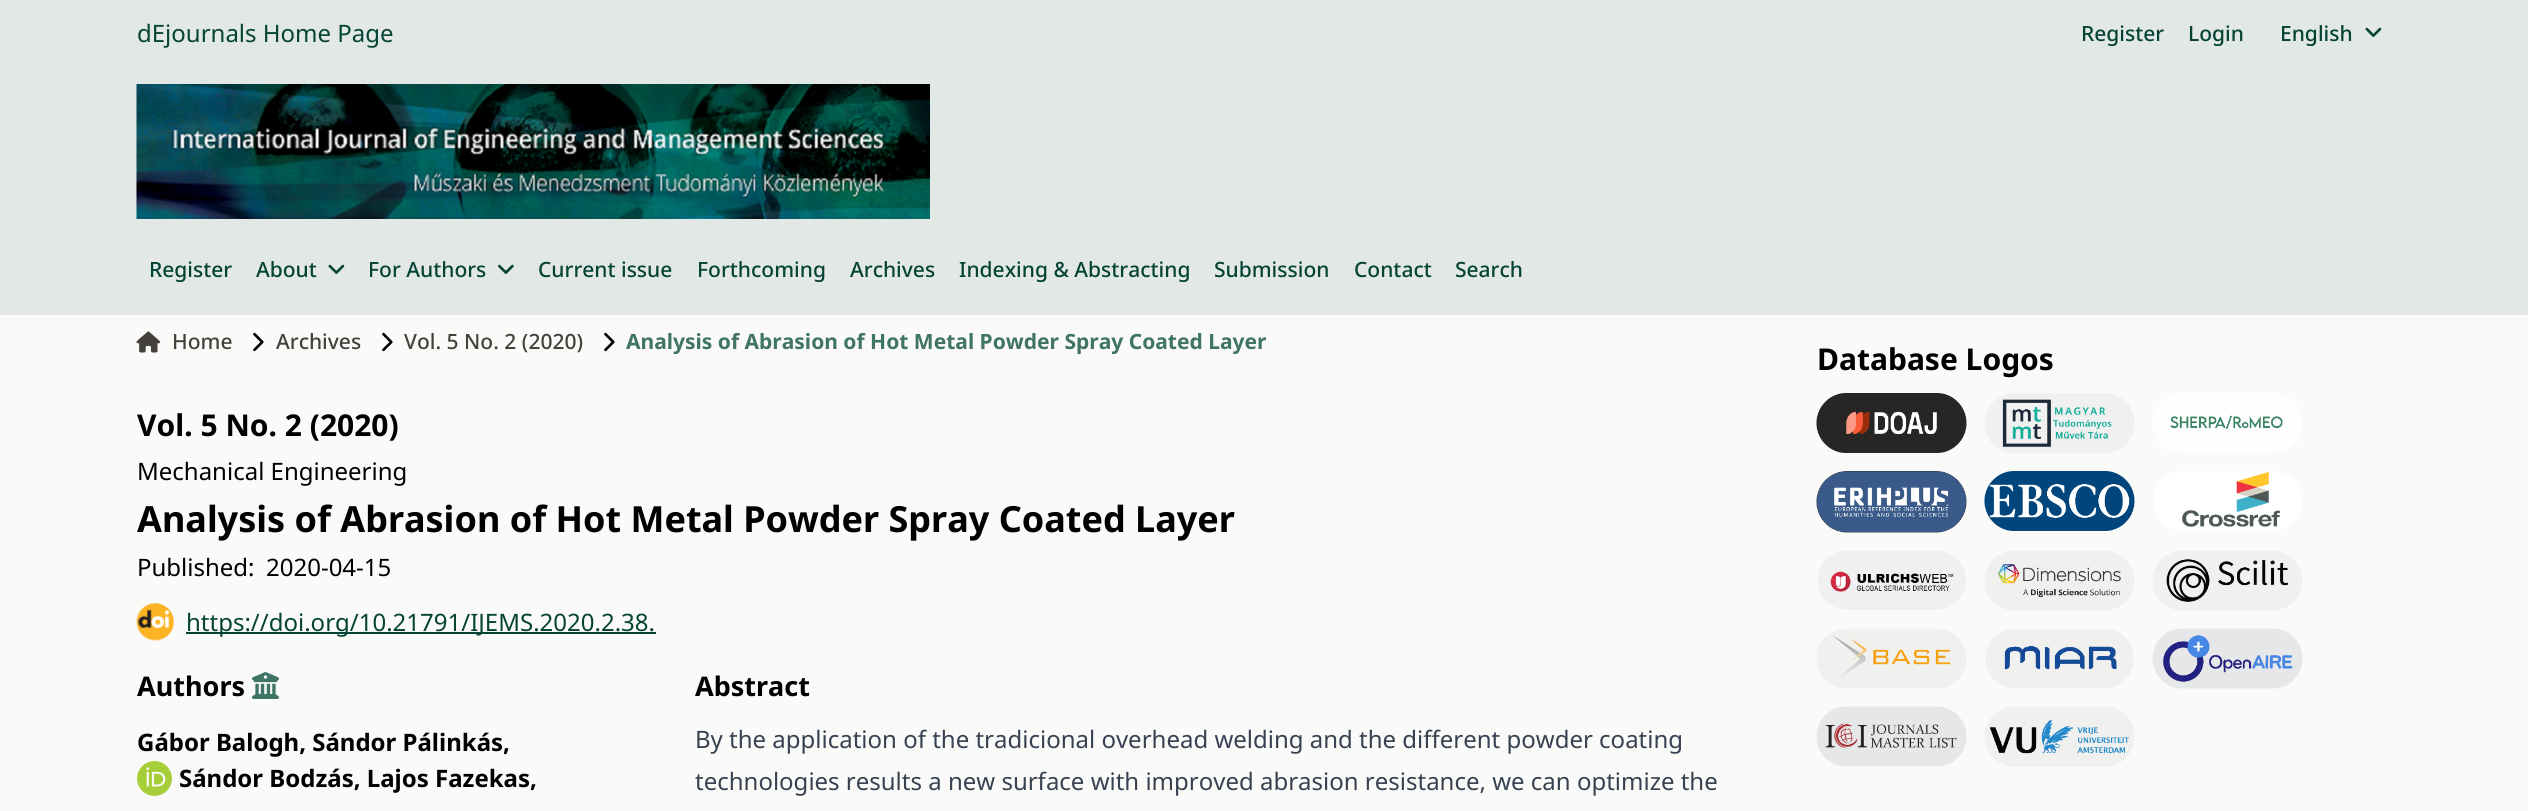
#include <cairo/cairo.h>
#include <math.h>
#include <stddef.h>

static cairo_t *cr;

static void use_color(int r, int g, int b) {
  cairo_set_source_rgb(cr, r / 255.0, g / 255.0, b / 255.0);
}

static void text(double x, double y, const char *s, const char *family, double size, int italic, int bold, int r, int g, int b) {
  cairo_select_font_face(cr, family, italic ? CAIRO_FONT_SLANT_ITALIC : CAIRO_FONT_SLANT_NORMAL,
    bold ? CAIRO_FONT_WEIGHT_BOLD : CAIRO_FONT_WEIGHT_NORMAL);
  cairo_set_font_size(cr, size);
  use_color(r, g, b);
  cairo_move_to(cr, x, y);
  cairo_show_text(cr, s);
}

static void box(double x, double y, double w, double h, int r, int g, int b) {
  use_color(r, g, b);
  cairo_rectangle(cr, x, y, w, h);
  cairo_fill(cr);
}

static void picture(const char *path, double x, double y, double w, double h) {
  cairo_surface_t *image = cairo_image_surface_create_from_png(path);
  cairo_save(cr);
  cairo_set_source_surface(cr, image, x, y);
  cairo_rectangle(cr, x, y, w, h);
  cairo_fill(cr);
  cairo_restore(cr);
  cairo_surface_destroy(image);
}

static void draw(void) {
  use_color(250, 250, 249);
  cairo_paint(cr);
  box(0, 0, 2528, 315, 225, 232, 230);
  picture("img_01.png", 2365, 27, 17, 10);
  picture("img_02.png", 136, 84, 794, 135);
  picture("img_01.png", 328, 264, 17, 10);
  picture("img_03.png", 498, 264, 16, 10);
  picture("img_04.png", 136, 331, 25, 22);
  picture("img_05.png", 253, 332, 11, 20);
  picture("img_05.png", 382, 332, 11, 20);
  picture("img_05.png", 604, 332, 11, 20);
  picture("img_06.png", 136, 603, 38, 38);
  box(186, 632, 470, 2, 5, 68, 52);
  picture("img_07.png", 252, 672, 27, 27);
  picture("img_08.png", 137, 761, 35, 35);
  picture("img_09.png", 1816, 393, 151, 60);
  picture("img_10.png", 1984, 393, 151, 60);
  picture("img_11.png", 2153, 393, 149, 60);
  picture("img_12.png", 1816, 471, 151, 62);
  picture("img_13.png", 1984, 471, 151, 60);
  picture("img_14.png", 2153, 471, 149, 60);
  picture("img_15.png", 1818, 550, 148, 60);
  picture("img_16.png", 1984, 550, 151, 61);
  picture("img_17.png", 2152, 550, 151, 61);
  picture("img_18.png", 1816, 628, 151, 61);
  picture("img_19.png", 1985, 629, 149, 59);
  picture("img_20.png", 2152, 628, 151, 61);
  picture("img_21.png", 1816, 706, 151, 61);
  picture("img_22.png", 1984, 706, 151, 61);
  text(137, 42, "dEjournals Home Page", "Noto Sans", 24, 0, 0, 5, 68, 52);
  text(2081, 41, "Register", "Noto Sans Medium", 21, 0, 0, 5, 68, 52);
  text(2188, 41, "Login", "Noto Sans Medium", 21, 0, 0, 5, 68, 52);
  text(2280, 41, "English", "Noto Sans Medium", 21, 0, 0, 5, 68, 52);
  text(149, 277, "Register", "Noto Sans Medium", 21, 0, 0, 5, 68, 52);
  text(256, 277, "About", "Noto Sans Medium", 21, 0, 0, 5, 68, 52);
  text(368, 277, "For Authors", "Noto Sans Medium", 21, 0, 0, 5, 68, 52);
  text(538, 277, "Current issue", "Noto Sans Medium", 21, 0, 0, 5, 68, 52);
  text(697, 277, "Forthcoming", "Noto Sans Medium", 21, 0, 0, 5, 68, 52);
  text(850, 277, "Archives", "Noto Sans Medium", 21, 0, 0, 5, 68, 52);
  text(959, 277, "Indexing & Abstracting", "Noto Sans Medium", 21, 0, 0, 5, 68, 52);
  text(1214, 277, "Submission", "Noto Sans Medium", 21, 0, 0, 5, 68, 52);
  text(1354, 277, "Contact", "Noto Sans Medium", 21, 0, 0, 5, 68, 52);
  text(1455, 277, "Search", "Noto Sans Medium", 21, 0, 0, 5, 68, 52);
  text(172, 349, "Home", "Noto Sans Medium", 21, 0, 0, 68, 64, 60);
  text(276, 349, "Archives", "Noto Sans Medium", 21, 0, 0, 68, 64, 60);
  text(404, 349, "Vol. 5 No. 2 (2020)", "Noto Sans Medium", 21, 0, 0, 68, 64, 60);
  cairo_save(cr);
  cairo_rectangle(cr, 626, 327, 640, 30);
  cairo_clip(cr);
  text(626, 349, "Analysis of Abrasion of Hot Metal Powder Spray Coated Layer", "Noto Sans", 21, 0, 1, 63, 116, 103);
  cairo_restore(cr);
  text(137, 436, "Vol. 5 No. 2 (2020)", "Noto Sans", 30, 0, 1, 0, 0, 0);
  text(137, 480, "Mechanical Engineering", "Noto Sans", 24, 0, 0, 0, 0, 0);
  text(137, 532, "Analysis of Abrasion of Hot Metal Powder Spray Coated Layer", "Noto Sans", 36, 0, 1, 0, 0, 0);
  text(137, 576, "Published:", "Noto Sans", 24, 0, 0, 0, 0, 0);
  text(266, 576, "2020-04-15", "Noto Sans", 24, 0, 0, 0, 0, 0);
  text(186, 631, "https://doi.org/10.21791/IJEMS.2020.2.38.", "Noto Sans", 24, 0, 0, 5, 68, 52);
  text(137, 696, "Authors", "Noto Sans", 27, 0, 1, 0, 0, 0);
  text(137, 751, "Gábor Balogh, Sándor Pálinkás,", "Noto Sans", 24, 0, 1, 0, 0, 0);
  text(179, 787, "Sándor Bodzás, Lajos Fazekas,", "Noto Sans", 24, 0, 1, 0, 0, 0);
  text(695, 696, "Abstract", "Noto Sans", 27, 0, 1, 0, 0, 0);
  text(695, 748, "By the application of the tradicional overhead welding and the different powder coating", "Noto Sans", 24, 0, 0, 55, 65, 81);
  text(695, 790, "technologies results a new surface with improved abrasion resistance, we can optimize the", "Noto Sans", 24, 0, 0, 55, 65, 81);
  text(1817, 370, "Database Logos", "Noto Sans", 30, 0, 1, 0, 0, 0);
}

int main(void) {
  cairo_surface_t *surface = cairo_image_surface_create(CAIRO_FORMAT_RGB24, 2528, 811);
  cr = cairo_create(surface);
  cairo_font_options_t *options = cairo_font_options_create();
  cairo_font_options_set_hint_metrics(options, CAIRO_HINT_METRICS_OFF);
  cairo_font_options_set_hint_style(options, CAIRO_HINT_STYLE_NONE);
  cairo_set_font_options(cr, options);
  cairo_set_miter_limit(cr, 4);
  draw();
  cairo_surface_write_to_png(surface, "out.png");
  cairo_font_options_destroy(options);
  cairo_destroy(cr);
  cairo_surface_destroy(surface);
  return 0;
}
